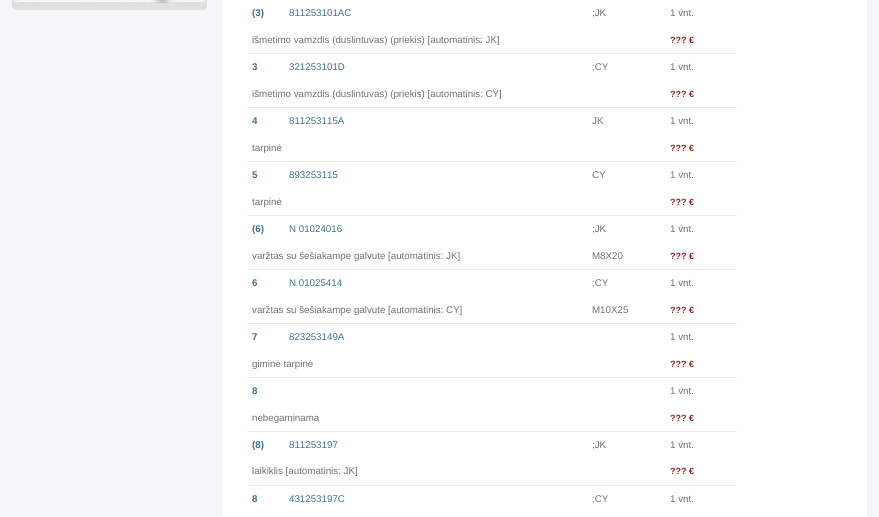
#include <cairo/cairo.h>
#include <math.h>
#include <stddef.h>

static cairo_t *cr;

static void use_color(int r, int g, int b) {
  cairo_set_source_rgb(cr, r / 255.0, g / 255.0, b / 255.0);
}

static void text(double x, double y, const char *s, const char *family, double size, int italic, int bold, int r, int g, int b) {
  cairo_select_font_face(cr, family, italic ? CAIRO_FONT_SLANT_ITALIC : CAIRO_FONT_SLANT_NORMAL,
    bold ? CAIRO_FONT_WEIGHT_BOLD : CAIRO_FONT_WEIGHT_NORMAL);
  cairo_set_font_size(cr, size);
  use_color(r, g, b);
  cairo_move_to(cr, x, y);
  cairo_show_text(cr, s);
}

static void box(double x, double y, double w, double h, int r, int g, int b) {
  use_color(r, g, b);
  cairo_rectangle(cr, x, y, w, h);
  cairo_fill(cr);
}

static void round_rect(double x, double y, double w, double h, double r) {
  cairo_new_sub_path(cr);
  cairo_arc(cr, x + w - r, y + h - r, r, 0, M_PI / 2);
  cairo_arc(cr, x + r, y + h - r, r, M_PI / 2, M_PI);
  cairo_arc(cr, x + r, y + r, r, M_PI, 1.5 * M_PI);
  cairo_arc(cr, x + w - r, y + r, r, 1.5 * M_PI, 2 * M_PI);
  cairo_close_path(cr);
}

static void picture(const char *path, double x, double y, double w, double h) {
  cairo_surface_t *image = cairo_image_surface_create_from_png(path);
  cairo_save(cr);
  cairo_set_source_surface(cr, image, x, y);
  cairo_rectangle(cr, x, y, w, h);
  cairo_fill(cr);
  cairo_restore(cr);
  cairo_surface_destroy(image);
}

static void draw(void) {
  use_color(245, 246, 247);
  cairo_paint(cr);
  use_color(224, 224, 224);
  round_rect(12, -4, 195, 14, 4);
  cairo_fill(cr);
  picture("img_01.png", 14, 0, 192, 3);
  box(222, 0, 645, 517, 255, 255, 255);
  box(247, 53, 490, 1, 231, 234, 238);
  box(247, 107, 490, 1, 231, 234, 238);
  box(247, 161, 490, 1, 231, 234, 238);
  box(247, 215, 490, 1, 231, 234, 238);
  box(247, 269, 490, 1, 231, 234, 238);
  box(247, 323, 490, 1, 231, 234, 238);
  box(247, 377, 490, 1, 231, 234, 238);
  box(247, 431, 490, 1, 231, 234, 238);
  box(247, 485, 490, 1, 231, 234, 238);
  text(252, 16, "(3)", "Liberation Sans", 9.75, 0, 1, 63, 114, 141);
  text(289, 16, "811253101AC", "Liberation Sans", 9.75, 0, 0, 63, 114, 141);
  text(592, 16, ";JK", "Liberation Sans", 9.75, 0, 0, 112, 112, 112);
  text(670, 16, "1 vnt.", "Liberation Sans", 9.75, 0, 0, 112, 112, 112);
  text(252, 43, "išmetimo vamzdis (duslintuvas) (priekis) [automatinis: JK]", "Liberation Sans", 9.75, 0, 0, 112, 112, 112);
  text(670, 43, "?\077? €", "Liberation Sans", 9, 0, 1, 153, 34, 34);
  text(252, 70, "3", "Liberation Sans", 9.75, 0, 1, 63, 114, 141);
  text(289, 70, "321253101D", "Liberation Sans", 9.75, 0, 0, 63, 114, 141);
  text(592, 70, ";CY", "Liberation Sans", 9.75, 0, 0, 112, 112, 112);
  text(670, 70, "1 vnt.", "Liberation Sans", 9.75, 0, 0, 112, 112, 112);
  text(252, 97, "išmetimo vamzdis (duslintuvas) (priekis) [automatinis: CY]", "Liberation Sans", 9.75, 0, 0, 112, 112, 112);
  text(670, 97, "?\077? €", "Liberation Sans", 9, 0, 1, 153, 34, 34);
  text(252, 124, "4", "Liberation Sans", 9.75, 0, 1, 63, 114, 141);
  text(289, 124, "811253115A", "Liberation Sans", 9.75, 0, 0, 63, 114, 141);
  text(592, 124, "JK", "Liberation Sans", 9.75, 0, 0, 112, 112, 112);
  text(670, 124, "1 vnt.", "Liberation Sans", 9.75, 0, 0, 112, 112, 112);
  text(252, 151, "tarpinė", "Liberation Sans", 9.75, 0, 0, 112, 112, 112);
  text(670, 151, "?\077? €", "Liberation Sans", 9, 0, 1, 153, 34, 34);
  text(252, 178, "5", "Liberation Sans", 9.75, 0, 1, 63, 114, 141);
  text(289, 178, "893253115", "Liberation Sans", 9.75, 0, 0, 63, 114, 141);
  text(592, 178, "CY", "Liberation Sans", 9.75, 0, 0, 112, 112, 112);
  text(670, 178, "1 vnt.", "Liberation Sans", 9.75, 0, 0, 112, 112, 112);
  text(252, 205, "tarpinė", "Liberation Sans", 9.75, 0, 0, 112, 112, 112);
  text(670, 205, "?\077? €", "Liberation Sans", 9, 0, 1, 153, 34, 34);
  text(252, 232, "(6)", "Liberation Sans", 9.75, 0, 1, 63, 114, 141);
  text(289, 232, "N 01024016", "Liberation Sans", 9.75, 0, 0, 63, 114, 141);
  text(592, 232, ";JK", "Liberation Sans", 9.75, 0, 0, 112, 112, 112);
  text(670, 232, "1 vnt.", "Liberation Sans", 9.75, 0, 0, 112, 112, 112);
  text(252, 259, "varžtas su šešiakampe galvute [automatinis: JK]", "Liberation Sans", 9.75, 0, 0, 112, 112, 112);
  text(592, 259, "M8X20", "Liberation Sans", 9.75, 0, 0, 112, 112, 112);
  text(670, 259, "?\077? €", "Liberation Sans", 9, 0, 1, 153, 34, 34);
  text(252, 286, "6", "Liberation Sans", 9.75, 0, 1, 63, 114, 141);
  text(289, 286, "N 01025414", "Liberation Sans", 9.75, 0, 0, 63, 114, 141);
  text(592, 286, ";CY", "Liberation Sans", 9.75, 0, 0, 112, 112, 112);
  text(670, 286, "1 vnt.", "Liberation Sans", 9.75, 0, 0, 112, 112, 112);
  text(252, 313, "varžtas su šešiakampe galvute [automatinis: CY]", "Liberation Sans", 9.75, 0, 0, 112, 112, 112);
  text(592, 313, "M10X25", "Liberation Sans", 9.75, 0, 0, 112, 112, 112);
  text(670, 313, "?\077? €", "Liberation Sans", 9, 0, 1, 153, 34, 34);
  text(252, 340, "7", "Liberation Sans", 9.75, 0, 1, 63, 114, 141);
  text(289, 340, "823253149A", "Liberation Sans", 9.75, 0, 0, 63, 114, 141);
  text(670, 340, "1 vnt.", "Liberation Sans", 9.75, 0, 0, 112, 112, 112);
  text(252, 367, "giminė tarpinė", "Liberation Sans", 9.75, 0, 0, 112, 112, 112);
  text(670, 367, "?\077? €", "Liberation Sans", 9, 0, 1, 153, 34, 34);
  text(252, 394, "8", "Liberation Sans", 9.75, 0, 1, 63, 114, 141);
  text(670, 394, "1 vnt.", "Liberation Sans", 9.75, 0, 0, 112, 112, 112);
  text(252, 421, "nebegaminama", "Liberation Sans", 9.75, 0, 0, 112, 112, 112);
  text(670, 421, "?\077? €", "Liberation Sans", 9, 0, 1, 153, 34, 34);
  text(252, 448, "(8)", "Liberation Sans", 9.75, 0, 1, 63, 114, 141);
  text(289, 448, "811253197", "Liberation Sans", 9.75, 0, 0, 63, 114, 141);
  text(592, 448, ";JK", "Liberation Sans", 9.75, 0, 0, 112, 112, 112);
  text(670, 448, "1 vnt.", "Liberation Sans", 9.75, 0, 0, 112, 112, 112);
  text(252, 474, "laikiklis [automatinis: JK]", "Liberation Sans", 9.75, 0, 0, 112, 112, 112);
  text(670, 474, "?\077? €", "Liberation Sans", 9, 0, 1, 153, 34, 34);
  text(252, 502, "8", "Liberation Sans", 9.75, 0, 1, 63, 114, 141);
  text(289, 502, "431253197C", "Liberation Sans", 9.75, 0, 0, 63, 114, 141);
  text(592, 502, ";CY", "Liberation Sans", 9.75, 0, 0, 112, 112, 112);
  text(670, 502, "1 vnt.", "Liberation Sans", 9.75, 0, 0, 112, 112, 112);
}

int main(void) {
  cairo_surface_t *surface = cairo_image_surface_create(CAIRO_FORMAT_RGB24, 879, 517);
  cr = cairo_create(surface);
  cairo_font_options_t *options = cairo_font_options_create();
  cairo_font_options_set_hint_metrics(options, CAIRO_HINT_METRICS_OFF);
  cairo_font_options_set_hint_style(options, CAIRO_HINT_STYLE_NONE);
  cairo_set_font_options(cr, options);
  cairo_set_miter_limit(cr, 4);
  draw();
  cairo_surface_write_to_png(surface, "out.png");
  cairo_font_options_destroy(options);
  cairo_destroy(cr);
  cairo_surface_destroy(surface);
  return 0;
}
